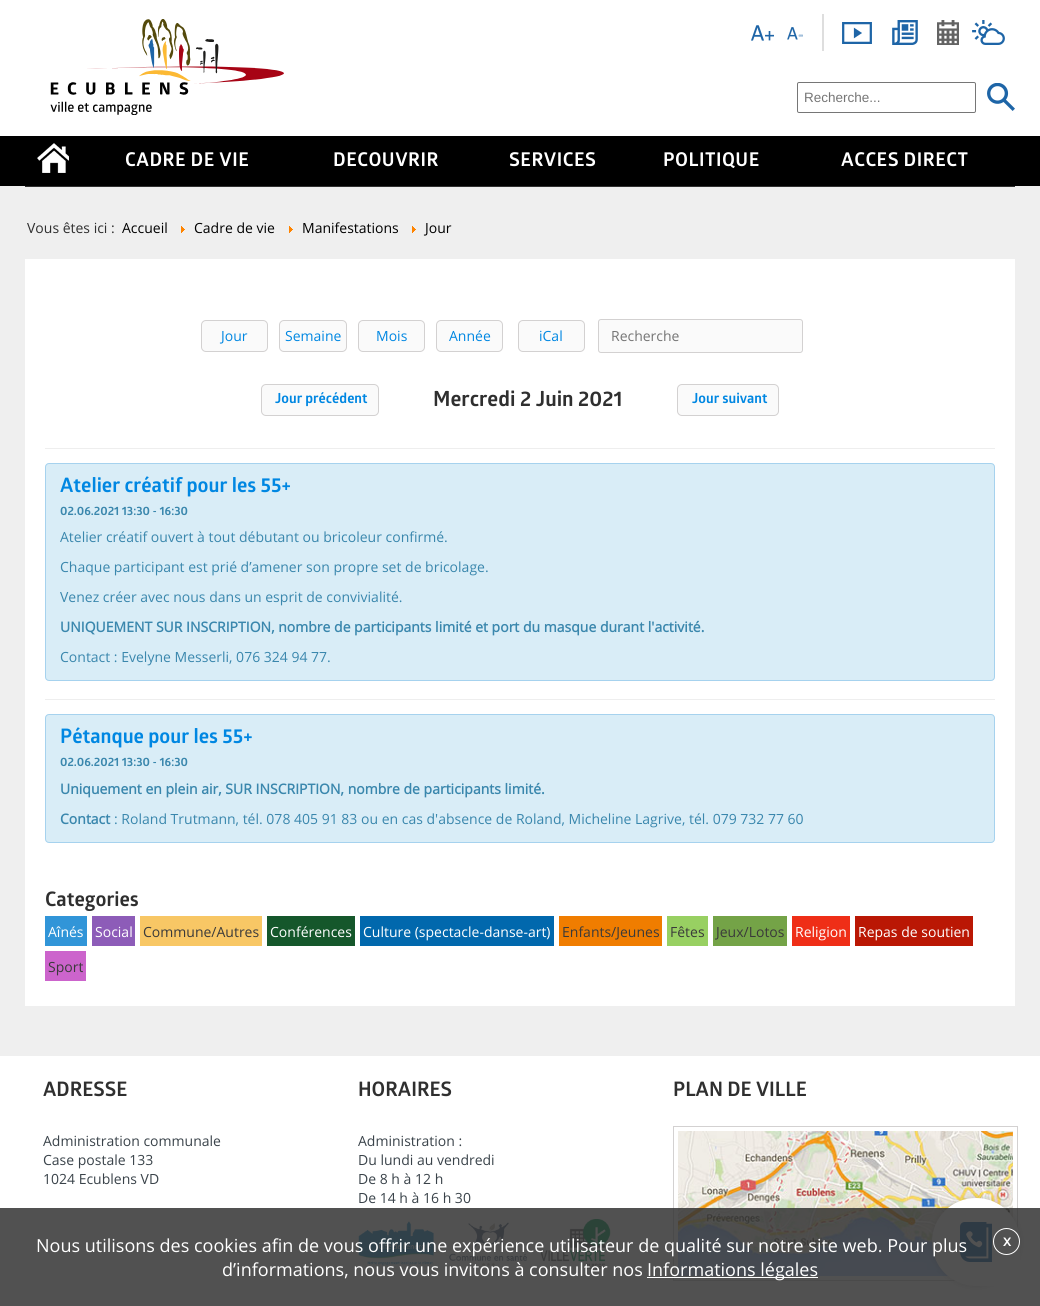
#include <cairo/cairo.h>
#include <math.h>
#include <stddef.h>

static cairo_t *cr;

static void use_color(int r, int g, int b) {
  cairo_set_source_rgb(cr, r / 255.0, g / 255.0, b / 255.0);
}

static void text(double x, double y, const char *s, const char *family, double size, int italic, int bold, int r, int g, int b) {
  cairo_select_font_face(cr, family, italic ? CAIRO_FONT_SLANT_ITALIC : CAIRO_FONT_SLANT_NORMAL,
    bold ? CAIRO_FONT_WEIGHT_BOLD : CAIRO_FONT_WEIGHT_NORMAL);
  cairo_set_font_size(cr, size);
  use_color(r, g, b);
  cairo_move_to(cr, x, y);
  cairo_show_text(cr, s);
}

static void spaced_text(double x, double y, const char *s, double letter, double word) {
  cairo_move_to(cr, x, y);
  while (*s) {
    char ch[5] = {0};
    int n = 0;
    do ch[n++] = *s++; while ((*s & 0xC0) == 0x80);
    cairo_show_text(cr, ch);
    cairo_rel_move_to(cr, letter + word * (*ch == ' '), 0);
  }
}

static void box(double x, double y, double w, double h, int r, int g, int b) {
  use_color(r, g, b);
  cairo_rectangle(cr, x, y, w, h);
  cairo_fill(cr);
}

static void round_rect(double x, double y, double w, double h, double r) {
  cairo_new_sub_path(cr);
  cairo_arc(cr, x + w - r, y + h - r, r, 0, M_PI / 2);
  cairo_arc(cr, x + r, y + h - r, r, M_PI / 2, M_PI);
  cairo_arc(cr, x + r, y + r, r, M_PI, 1.5 * M_PI);
  cairo_arc(cr, x + w - r, y + r, r, 1.5 * M_PI, 2 * M_PI);
  cairo_close_path(cr);
}

static void shadow(double x, double y, double w, double h, double r, double blur, double alpha) {
  cairo_push_group_with_content(cr, CAIRO_CONTENT_ALPHA);
  cairo_set_operator(cr, CAIRO_OPERATOR_SOURCE);
  for (int i = 15; i >= -15 && fmin(w, h) + blur * i / 3 > 0; i -= 2) {
    double e = blur * i / 6;
    cairo_set_source_rgba(cr, 0, 0, 0, alpha * erfc((i - 1) / 8.5) / 2);
    round_rect(x - e, y - e, w + 2 * e, h + 2 * e, fmax(0, fmin(r + e + blur * .6, fmin(w, h) / 2 + e)));
    cairo_fill(cr);
  }
  cairo_pattern_t *soft = cairo_pop_group(cr);
  cairo_mask(cr, soft);
  cairo_pattern_destroy(soft);
}

static void picture(const char *path, double x, double y, double w, double h) {
  cairo_surface_t *image = cairo_image_surface_create_from_png(path);
  cairo_save(cr);
  cairo_set_source_surface(cr, image, x, y);
  cairo_rectangle(cr, x, y, w, h);
  cairo_fill(cr);
  cairo_restore(cr);
  cairo_surface_destroy(image);
}

static void draw(void) {
  use_color(239, 239, 239);
  cairo_paint(cr);
  box(25, 186, 990, 1, 48, 48, 48);
  box(0, 0, 1040, 136, 255, 255, 255);
  picture("img_01.png", 50, 19, 234, 96);
  picture("img_02.png", 751, 25, 23, 16);
  picture("img_03.png", 787, 27, 16, 13);
  box(822, 14, 2, 37, 222, 222, 222);
  picture("img_04.png", 842, 22, 30, 22);
  picture("img_05.png", 892, 20, 26, 25);
  picture("img_06.png", 937, 20, 22, 25);
  picture("img_07.png", 972, 20, 33, 25);
  round_rect(797.5, 82.5, 178, 30, 1.5);
  use_color(118, 118, 118);
  cairo_set_line_width(cr, 1);
  cairo_stroke(cr);
  picture("img_08.png", 987, 83, 28, 28);
  box(0, 136, 1040, 50, 0, 0, 0);
  picture("img_09.png", 37, 143, 32, 30);
  picture("img_10.png", 181, 226, 4, 7);
  picture("img_10.png", 289, 226, 4, 7);
  picture("img_10.png", 412, 226, 4, 7);
  box(25, 259, 990, 747, 255, 255, 255);
  use_color(250, 250, 250);
  round_rect(201.5, 320.5, 66, 31, 4.5);
  cairo_fill_preserve(cr);
  use_color(211, 209, 209);
  cairo_stroke(cr);
  use_color(250, 250, 250);
  round_rect(279.5, 320.5, 67, 31, 4.5);
  cairo_fill_preserve(cr);
  use_color(211, 209, 209);
  cairo_stroke(cr);
  use_color(250, 250, 250);
  round_rect(358.5, 320.5, 66, 31, 4.5);
  cairo_fill_preserve(cr);
  use_color(211, 209, 209);
  cairo_stroke(cr);
  use_color(250, 250, 250);
  round_rect(436.5, 320.5, 66, 31, 4.5);
  cairo_fill_preserve(cr);
  use_color(211, 209, 209);
  cairo_stroke(cr);
  use_color(250, 250, 250);
  round_rect(518.5, 320.5, 66, 31, 4.5);
  cairo_fill_preserve(cr);
  use_color(211, 209, 209);
  cairo_stroke(cr);
  use_color(250, 250, 250);
  round_rect(598.5, 319.5, 204, 33, 2.5);
  cairo_fill_preserve(cr);
  use_color(211, 209, 209);
  cairo_stroke(cr);
  use_color(250, 250, 250);
  round_rect(261.5, 384.5, 117, 31, 4.5);
  cairo_fill_preserve(cr);
  use_color(211, 209, 209);
  cairo_stroke(cr);
  use_color(250, 250, 250);
  round_rect(677.5, 384.5, 101, 31, 4.5);
  cairo_fill_preserve(cr);
  use_color(211, 209, 209);
  cairo_stroke(cr);
  box(45, 448, 950, 1, 238, 238, 238);
  use_color(217, 237, 247);
  round_rect(45, 463, 950, 218, 4);
  cairo_fill(cr);
  round_rect(45.5, 463.5, 949, 217, 3.5);
  cairo_set_source_rgba(cr, 0.192, 0.584, 0.847, 0.3);
  cairo_stroke(cr);
  box(45, 699, 950, 1, 238, 238, 238);
  use_color(217, 237, 247);
  round_rect(45, 714, 950, 129, 4);
  cairo_fill(cr);
  round_rect(45.5, 714.5, 949, 128, 3.5);
  cairo_set_source_rgba(cr, 0.192, 0.584, 0.847, 0.3);
  cairo_stroke(cr);
  box(45, 916, 42, 30, 49, 149, 216);
  box(92, 916, 43, 30, 141, 92, 184);
  box(140, 916, 122, 30, 248, 199, 101);
  box(267, 916, 88, 30, 21, 87, 43);
  box(360, 916, 194, 30, 1, 104, 173);
  box(559, 916, 103, 30, 240, 125, 0);
  box(667, 916, 41, 30, 152, 208, 98);
  box(713, 916, 74, 30, 116, 163, 71);
  box(792, 916, 58, 30, 239, 46, 23);
  box(855, 916, 118, 30, 186, 23, 4);
  box(45, 951, 41, 30, 204, 100, 204);
  box(0, 1056, 1040, 250, 255, 255, 255);
  picture("img_11.png", 358, 1219, 253, 51);
  cairo_rectangle(cr, 673.5, 1126.5, 344, 154);
  use_color(211, 209, 209);
  cairo_stroke(cr);
  picture("img_12.png", 678, 1131, 335, 145);
  use_color(0, 0, 0);
  shadow(932, 1198, 88, 88, 44, 3, 0.16);
  use_color(255, 255, 255);
  cairo_new_path(cr);
  cairo_move_to(cr, 976, 1198);
  cairo_curve_to(cr, 1000.5, 1198, 1020, 1217.5, 1020, 1242);
  cairo_line_to(cr, 1020, 1286);
  cairo_line_to(cr, 976, 1286);
  cairo_curve_to(cr, 951.5, 1286, 932, 1266.5, 932, 1242);
  cairo_curve_to(cr, 932, 1217.5, 951.5, 1198, 976, 1198);
  cairo_close_path(cr);
  cairo_fill(cr);
  picture("img_13.png", 960, 1222, 32, 40);
  cairo_set_source_rgba(cr, 0.2, 0.2, 0.2, 0.85);
  cairo_rectangle(cr, 0, 1208, 1040, 98);
  cairo_fill(cr);
  box(647, 1277, 171, 1, 255, 255, 255);
  cairo_arc(cr, 1006.5, 1241.5, 13, 0, 2 * M_PI);
  cairo_stroke(cr);
  text(804, 102, "Recherche...", "Liberation Sans", 13.5, 0, 0, 117, 117, 117);
  cairo_select_font_face(cr, "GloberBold", CAIRO_FONT_SLANT_NORMAL, CAIRO_FONT_WEIGHT_BOLD);
  cairo_set_font_size(cr, 19);
  use_color(255, 255, 255);
  spaced_text(125, 166, "CADRE DE VIE", 0.5, 0);
  spaced_text(333, 166, "DECOUVRIR", 0.5, 0);
  spaced_text(509, 166, "SERVICES", 0.5, 0);
  spaced_text(663, 166, "POLITIQUE", 0.5, 0);
  spaced_text(841, 166, "ACCES DIRECT", 0.5, 0);
  text(27, 233, "Vous êtes ici :", "Open Sans", 14, 0, 0, 47, 47, 47);
  text(122, 233, "Accueil", "Open Sans", 14, 0, 0, 0, 0, 0);
  text(194, 233, "Cadre de vie", "Open Sans", 14, 0, 0, 0, 0, 0);
  text(302, 233, "Manifestations", "Open Sans", 14, 0, 0, 0, 0, 0);
  text(425, 233, "Jour", "Open Sans", 14, 0, 0, 0, 0, 0);
  text(221, 341, "Jour", "Open Sans", 14, 0, 0, 0, 135, 226);
  text(285, 341, "Semaine", "Open Sans", 14, 0, 0, 0, 135, 226);
  text(376, 341, "Mois", "Open Sans", 14, 0, 0, 0, 135, 226);
  text(449, 341, "Année", "Open Sans", 14, 0, 0, 0, 135, 226);
  text(539, 341, "iCal", "Open Sans", 14, 0, 0, 0, 135, 226);
  text(611, 341, "Recherche", "Open Sans", 14, 0, 0, 117, 117, 117);
  text(275, 403, "Jour précédent", "GloberBold", 14, 0, 1, 0, 135, 226);
  text(433, 406, "Mercredi 2 Juin 2021", "GloberBold", 21, 0, 1, 47, 47, 47);
  text(692, 403, "Jour suivant", "GloberBold", 14, 0, 1, 0, 135, 226);
  text(60, 492, "Atelier créatif pour les 55+", "GloberBold", 20, 0, 1, 0, 135, 226);
  text(60, 515, "02.06.2021 13:30 - 16:30", "GloberBold", 12, 0, 1, 58, 135, 173);
  text(60, 542, "Atelier créatif ouvert à tout débutant ou bricoleur confirmé.", "Open Sans", 14, 0, 0, 58, 135, 173);
  text(60, 572, "Chaque participant est prié d’amener son propre set de bricolage.", "Open Sans", 14, 0, 0, 58, 135, 173);
  text(60, 602, "Venez créer avec nous dans un esprit de convivialité.", "Open Sans", 14, 0, 0, 58, 135, 173);
  text(60, 632, "UNIQUEMENT SUR INSCRIPTION, nombre de participants limité et port du masque durant l'activité.", "Open Sans", 14, 0, 1, 58, 135, 173);
  text(60, 662, "Contact : Evelyne Messerli, 076 324 94 77.", "Open Sans", 14, 0, 0, 58, 135, 173);
  text(60, 743, "Pétanque pour les 55+", "GloberBold", 20, 0, 1, 0, 135, 226);
  text(60, 766, "02.06.2021 13:30 - 16:30", "GloberBold", 12, 0, 1, 58, 135, 173);
  text(60, 794, "Uniquement en plein air, SUR INSCRIPTION, nombre de participants limité.", "Open Sans", 14, 0, 1, 58, 135, 173);
  text(60, 824, "Contact", "Open Sans", 14, 0, 1, 58, 135, 173);
  text(114, 824, ": Roland Trutmann, tél. 078 405 91 83 ou en cas d'absence de Roland, Micheline Lagrive, tél. 079 732 77 60", "Open Sans", 14, 0, 0, 58, 135, 173);
  text(45, 906, "Categories", "GloberBold", 20, 0, 1, 47, 47, 47);
  text(48, 937, "Aînés", "Open Sans", 14, 0, 0, 255, 255, 255);
  text(95, 937, "Social", "Open Sans", 14, 0, 0, 255, 255, 255);
  text(143, 937, "Commune/Autres", "Open Sans", 14, 0, 0, 58, 58, 58);
  text(270, 937, "Conférences", "Open Sans", 14, 0, 0, 255, 255, 255);
  text(363, 937, "Culture (spectacle-danse-art)", "Open Sans", 14, 0, 0, 255, 255, 255);
  text(562, 937, "Enfants/Jeunes", "Open Sans", 14, 0, 0, 58, 58, 58);
  text(670, 937, "Fêtes", "Open Sans", 14, 0, 0, 58, 58, 58);
  text(716, 937, "Jeux/Lotos", "Open Sans", 14, 0, 0, 58, 58, 58);
  text(795, 937, "Religion", "Open Sans", 14, 0, 0, 255, 255, 255);
  text(858, 937, "Repas de soutien", "Open Sans", 14, 0, 0, 255, 255, 255);
  text(48, 972, "Sport", "Open Sans", 14, 0, 0, 58, 58, 58);
  text(43, 1096, "ADRESSE", "GloberBold", 20, 0, 1, 47, 47, 47);
  text(43, 1146, "Administration communale", "Open Sans", 14, 0, 0, 58, 67, 74);
  text(43, 1165, "Case postale 133", "Open Sans", 14, 0, 0, 58, 67, 74);
  text(43, 1184, "1024 Ecublens VD", "Open Sans", 14, 0, 0, 58, 67, 74);
  text(358, 1096, "HORAIRES", "GloberBold", 20, 0, 1, 47, 47, 47);
  text(358, 1146, "Administration :", "Open Sans", 14, 0, 0, 58, 67, 74);
  text(358, 1165, "Du lundi au vendredi", "Open Sans", 14, 0, 0, 58, 67, 74);
  text(358, 1184, "De 8 h à 12 h", "Open Sans", 14, 0, 0, 58, 67, 74);
  text(358, 1203, "De 14 h à 16 h 30", "Open Sans", 14, 0, 0, 58, 67, 74);
  text(673, 1096, "PLAN DE VILLE", "GloberBold", 20, 0, 1, 47, 47, 47);
  text(36, 1252, "Nous utilisons des cookies afin de vous offrir une expérience utilisateur de qualité sur notre site web. Pour plus", "Open Sans", 18, 0, 0, 255, 255, 255);
  text(222, 1276, "d’informations, nous vous invitons à consulter nos", "Open Sans", 18, 0, 0, 255, 255, 255);
  text(647, 1276, "Informations légales", "Open Sans", 18, 0, 0, 255, 255, 255);
  text(1003, 1246, "x", "Open Sans", 15, 0, 1, 255, 255, 255);
}

int main(void) {
  cairo_surface_t *surface = cairo_image_surface_create(CAIRO_FORMAT_RGB24, 1040, 1306);
  cr = cairo_create(surface);
  cairo_font_options_t *options = cairo_font_options_create();
  cairo_font_options_set_hint_metrics(options, CAIRO_HINT_METRICS_OFF);
  cairo_font_options_set_hint_style(options, CAIRO_HINT_STYLE_NONE);
  cairo_set_font_options(cr, options);
  cairo_set_miter_limit(cr, 4);
  draw();
  cairo_surface_write_to_png(surface, "out.png");
  cairo_font_options_destroy(options);
  cairo_destroy(cr);
  cairo_surface_destroy(surface);
  return 0;
}
